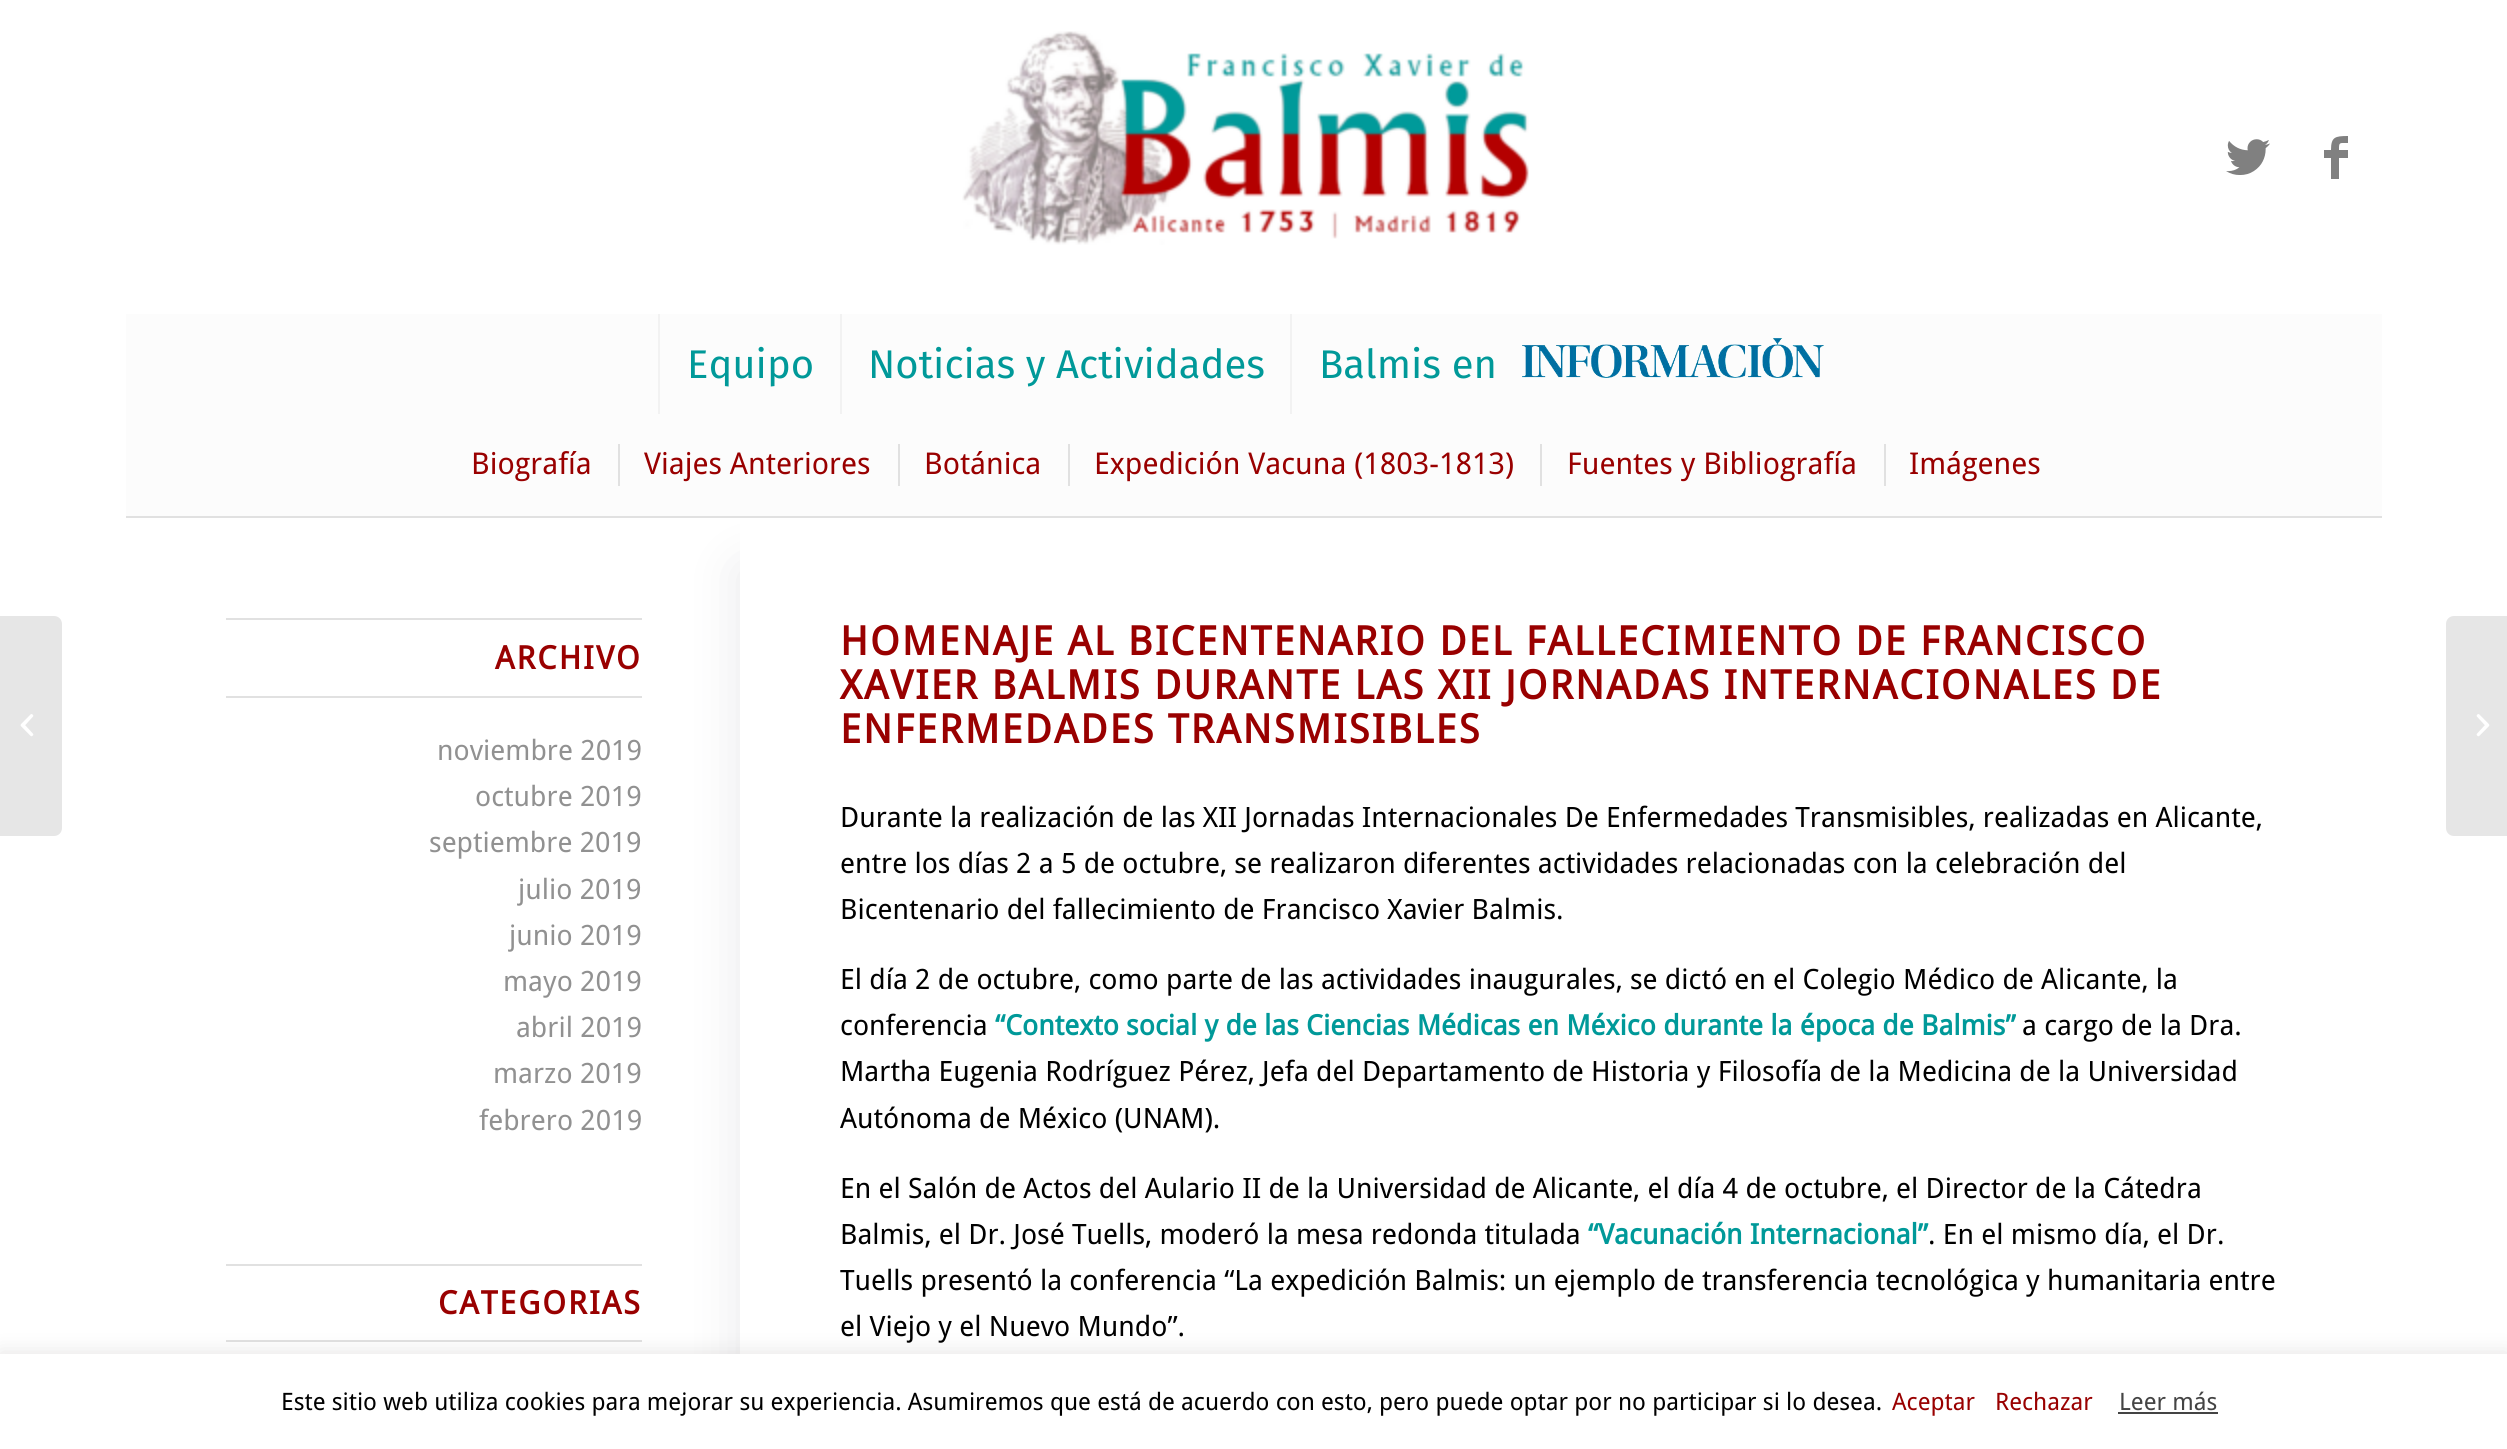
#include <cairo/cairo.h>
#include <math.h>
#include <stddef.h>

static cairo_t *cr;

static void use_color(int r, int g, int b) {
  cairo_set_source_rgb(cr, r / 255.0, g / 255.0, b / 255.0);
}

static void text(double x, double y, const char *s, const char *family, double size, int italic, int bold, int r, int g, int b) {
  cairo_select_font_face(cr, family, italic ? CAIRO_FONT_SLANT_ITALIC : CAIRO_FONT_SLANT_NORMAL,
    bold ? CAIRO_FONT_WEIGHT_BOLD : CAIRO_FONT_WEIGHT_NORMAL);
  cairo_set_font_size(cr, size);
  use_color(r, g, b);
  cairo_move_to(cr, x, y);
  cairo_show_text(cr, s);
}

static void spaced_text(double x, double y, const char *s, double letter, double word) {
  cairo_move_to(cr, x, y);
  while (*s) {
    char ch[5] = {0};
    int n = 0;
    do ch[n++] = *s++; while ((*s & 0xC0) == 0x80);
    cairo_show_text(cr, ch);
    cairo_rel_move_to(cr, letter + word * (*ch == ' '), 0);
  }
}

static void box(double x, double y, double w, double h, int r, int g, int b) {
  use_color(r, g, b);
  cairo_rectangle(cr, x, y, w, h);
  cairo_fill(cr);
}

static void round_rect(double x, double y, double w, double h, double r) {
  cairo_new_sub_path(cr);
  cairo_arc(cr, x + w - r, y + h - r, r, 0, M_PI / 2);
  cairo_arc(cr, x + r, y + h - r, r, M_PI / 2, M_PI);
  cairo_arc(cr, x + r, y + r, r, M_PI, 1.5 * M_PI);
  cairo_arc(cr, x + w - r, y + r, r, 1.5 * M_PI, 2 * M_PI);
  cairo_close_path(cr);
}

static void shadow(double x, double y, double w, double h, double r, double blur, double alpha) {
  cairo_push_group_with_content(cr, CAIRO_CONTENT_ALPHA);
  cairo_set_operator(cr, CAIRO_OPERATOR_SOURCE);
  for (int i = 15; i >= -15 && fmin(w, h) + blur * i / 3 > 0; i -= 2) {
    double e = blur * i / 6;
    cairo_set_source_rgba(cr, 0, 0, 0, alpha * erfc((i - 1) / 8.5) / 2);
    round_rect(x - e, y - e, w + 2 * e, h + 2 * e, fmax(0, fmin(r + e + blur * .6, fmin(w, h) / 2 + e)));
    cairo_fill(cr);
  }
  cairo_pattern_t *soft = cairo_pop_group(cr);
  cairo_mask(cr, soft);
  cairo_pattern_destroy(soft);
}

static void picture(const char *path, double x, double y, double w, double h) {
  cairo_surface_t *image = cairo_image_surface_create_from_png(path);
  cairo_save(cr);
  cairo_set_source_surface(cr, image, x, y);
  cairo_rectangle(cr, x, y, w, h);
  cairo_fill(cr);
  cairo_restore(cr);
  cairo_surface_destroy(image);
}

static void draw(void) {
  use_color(255, 255, 255);
  cairo_paint(cr);
  picture("img_01.png", 962, 31, 567, 214);
  picture("img_02.png", 2226, 139, 44, 36);
  use_color(128, 128, 128);
  cairo_new_path(cr);
  cairo_move_to(cr, 2348, 143);
  cairo_curve_to(cr, 2339, 143, 2339, 142, 2339, 150);
  cairo_line_to(cr, 2348, 150);
  cairo_line_to(cr, 2348, 158);
  cairo_line_to(cr, 2339, 158);
  cairo_line_to(cr, 2339, 179);
  cairo_line_to(cr, 2331, 179);
  cairo_line_to(cr, 2331, 158);
  cairo_line_to(cr, 2324, 158);
  cairo_line_to(cr, 2324, 150);
  cairo_line_to(cr, 2331, 150);
  cairo_curve_to(cr, 2331, 137, 2335, 136, 2348, 136);
  cairo_close_path(cr);
  cairo_fill(cr);
  cairo_save(cr);
  cairo_rectangle(cr, 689, 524, 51, 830);
  cairo_clip(cr);
  use_color(233, 233, 235);
  shadow(740, 568, 1542, 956, 0, 25, 1);
  cairo_restore(cr);
  box(126, 314, 2256, 202, 252, 252, 252);
  box(658, 314, 2, 100, 242, 242, 242);
  box(840, 314, 2, 100, 242, 242, 242);
  box(1290, 314, 2, 100, 242, 242, 242);
  picture("img_03.png", 1522, 338, 302, 40);
  use_color(230, 230, 230);
  cairo_new_path(cr);
  cairo_move_to(cr, 0, 616);
  cairo_line_to(cr, 54, 616);
  cairo_curve_to(cr, 58.5, 616, 62, 619.5, 62, 624);
  cairo_line_to(cr, 62, 828);
  cairo_curve_to(cr, 62, 832.5, 58.5, 836, 54, 836);
  cairo_line_to(cr, 0, 836);
  cairo_close_path(cr);
  cairo_fill(cr);
  picture("img_04.png", 20, 714, 14, 23);
  box(126, 516, 2256, 2, 225, 225, 225);
  box(618, 444, 2, 42, 225, 225, 225);
  box(898, 444, 2, 42, 225, 225, 225);
  box(1068, 444, 2, 42, 225, 225, 225);
  box(1540, 444, 2, 42, 225, 225, 225);
  box(1884, 444, 2, 42, 225, 225, 225);
  box(226, 618, 416, 2, 225, 225, 225);
  box(226, 696, 416, 2, 225, 225, 225);
  box(226, 1264, 416, 2, 225, 225, 225);
  box(226, 1340, 416, 2, 225, 225, 225);
  use_color(230, 230, 230);
  cairo_new_path(cr);
  cairo_move_to(cr, 2454, 616);
  cairo_line_to(cr, 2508, 616);
  cairo_line_to(cr, 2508, 836);
  cairo_line_to(cr, 2454, 836);
  cairo_curve_to(cr, 2449.5, 836, 2446, 832.5, 2446, 828);
  cairo_line_to(cr, 2446, 624);
  cairo_curve_to(cr, 2446, 619.5, 2449.5, 616, 2454, 616);
  cairo_close_path(cr);
  cairo_fill(cr);
  picture("img_05.png", 2476, 714, 14, 23);
  use_color(172, 171, 171);
  shadow(0, 1352, 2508, 96, 0, 10, 0.3);
  box(0, 1354, 2507, 95, 255, 255, 255);
  box(2118, 1412, 100, 2, 68, 68, 68);
  text(687, 378, "Equipo", "Fira Sans", 40, 0, 0, 0, 153, 153);
  text(868, 378, "Noticias y Actividades", "Fira Sans", 40, 0, 0, 0, 153, 153);
  text(1319, 378, "Balmis en", "Fira Sans", 40, 0, 0, 0, 153, 153);
  text(471, 474, "Biografía", "Droid Sans", 30, 0, 0, 153, 0, 0);
  text(644, 474, "Viajes Anteriores", "Droid Sans", 30, 0, 0, 153, 0, 0);
  text(924, 474, "Botánica", "Droid Sans", 30, 0, 0, 153, 0, 0);
  text(1094, 474, "Expedición Vacuna (1803-1813)", "Droid Sans", 30, 0, 0, 153, 0, 0);
  text(1567, 474, "Fuentes y Bibliografía", "Droid Sans", 30, 0, 0, 153, 0, 0);
  text(1909, 474, "Imágenes", "Droid Sans", 30, 0, 0, 153, 0, 0);
  cairo_select_font_face(cr, "Droid Sans", CAIRO_FONT_SLANT_NORMAL, CAIRO_FONT_WEIGHT_BOLD);
  cairo_set_font_size(cr, 32);
  spaced_text(495, 669, "ARCHIVO", 2, 0);
  text(437, 760, "noviembre 2019", "Droid Sans", 28, 0, 0, 145, 145, 145);
  text(475, 806, "octubre 2019", "Droid Sans", 28, 0, 0, 145, 145, 145);
  text(429, 852, "septiembre 2019", "Droid Sans", 28, 0, 0, 145, 145, 145);
  text(518, 899, "julio 2019", "Droid Sans", 28, 0, 0, 145, 145, 145);
  text(509, 945, "junio 2019", "Droid Sans", 28, 0, 0, 145, 145, 145);
  text(503, 991, "mayo 2019", "Droid Sans", 28, 0, 0, 145, 145, 145);
  text(516, 1037, "abril 2019", "Droid Sans", 28, 0, 0, 145, 145, 145);
  text(493, 1083, "marzo 2019", "Droid Sans", 28, 0, 0, 145, 145, 145);
  text(479, 1130, "febrero 2019", "Droid Sans", 28, 0, 0, 145, 145, 145);
  cairo_select_font_face(cr, "Droid Sans", CAIRO_FONT_SLANT_NORMAL, CAIRO_FONT_WEIGHT_BOLD);
  cairo_set_font_size(cr, 32);
  use_color(153, 0, 0);
  spaced_text(438, 1314, "CATEGORIAS", 2, 0);
  cairo_set_font_size(cr, 40);
  spaced_text(840, 655, "HOMENAJE AL BICENTENARIO DEL FALLECIMIENTO DE FRANCISCO", 2, 0);
  spaced_text(840, 699, "XAVIER BALMIS DURANTE LAS XII JORNADAS INTERNACIONALES DE", 2, 0);
  spaced_text(840, 743, "ENFERMEDADES TRANSMISIBLES", 2, 0);
  text(840, 827, "Durante la realización de las XII Jornadas Internacionales De Enfermedades Transmisibles, realizadas en Alicante,", "Droid Sans", 28, 0, 0, 0, 0, 0);
  text(840, 873, "entre los días 2 a 5 de octubre, se realizaron diferentes actividades relacionadas con la celebración del", "Droid Sans", 28, 0, 0, 0, 0, 0);
  text(840, 919, "Bicentenario del fallecimiento de Francisco Xavier Balmis.", "Droid Sans", 28, 0, 0, 0, 0, 0);
  text(840, 989, "El día 2 de octubre, como parte de las actividades inaugurales, se dictó en el Colegio Médico de Alicante, la", "Droid Sans", 28, 0, 0, 0, 0, 0);
  text(840, 1035, "conferencia", "Droid Sans", 28, 0, 0, 0, 0, 0);
  text(995, 1035, "“Contexto social y de las Ciencias Médicas en México durante la época de Balmis”", "Droid Sans", 28, 0, 1, 0, 153, 153);
  text(2022, 1035, "a cargo de la Dra.", "Droid Sans", 28, 0, 0, 0, 0, 0);
  text(840, 1081, "Martha Eugenia Rodríguez Pérez, Jefa del Departamento de Historia y Filosofía de la Medicina de la Universidad", "Droid Sans", 28, 0, 0, 0, 0, 0);
  text(840, 1128, "Autónoma de México (UNAM).", "Droid Sans", 28, 0, 0, 0, 0, 0);
  text(840, 1198, "En el Salón de Actos del Aulario II de la Universidad de Alicante, el día 4 de octubre, el Director de la Cátedra", "Droid Sans", 28, 0, 0, 0, 0, 0);
  text(840, 1244, "Balmis, el Dr. José Tuells, moderó la mesa redonda titulada", "Droid Sans", 28, 0, 0, 0, 0, 0);
  text(1588, 1244, "“Vacunación Internacional”", "Droid Sans", 28, 0, 1, 0, 153, 153);
  text(1928, 1244, ". En el mismo día, el Dr.", "Droid Sans", 28, 0, 0, 0, 0, 0);
  text(840, 1290, "Tuells presentó la conferencia “La expedición Balmis: un ejemplo de transferencia tecnológica y humanitaria entre", "Droid Sans", 28, 0, 0, 0, 0, 0);
  text(840, 1336, "el Viejo y el Nuevo Mundo”.", "Droid Sans", 28, 0, 0, 0, 0, 0);
  text(281, 1410, "Este sitio web utiliza cookies para mejorar su experiencia. Asumiremos que está de acuerdo con esto, pero puede optar por no participar si lo desea.", "Droid Sans", 24, 0, 0, 0, 0, 0);
  text(1892, 1410, "Aceptar", "Droid Sans", 24, 0, 0, 153, 0, 0);
  text(1995, 1410, "Rechazar", "Droid Sans", 24, 0, 0, 153, 0, 0);
  text(2119, 1410, "Leer más", "Droid Sans", 24, 0, 0, 68, 68, 68);
}

int main(void) {
  cairo_surface_t *surface = cairo_image_surface_create(CAIRO_FORMAT_RGB24, 2507, 1449);
  cr = cairo_create(surface);
  cairo_font_options_t *options = cairo_font_options_create();
  cairo_font_options_set_hint_metrics(options, CAIRO_HINT_METRICS_OFF);
  cairo_font_options_set_hint_style(options, CAIRO_HINT_STYLE_NONE);
  cairo_set_font_options(cr, options);
  cairo_set_miter_limit(cr, 4);
  draw();
  cairo_surface_write_to_png(surface, "out.png");
  cairo_font_options_destroy(options);
  cairo_destroy(cr);
  cairo_surface_destroy(surface);
  return 0;
}
